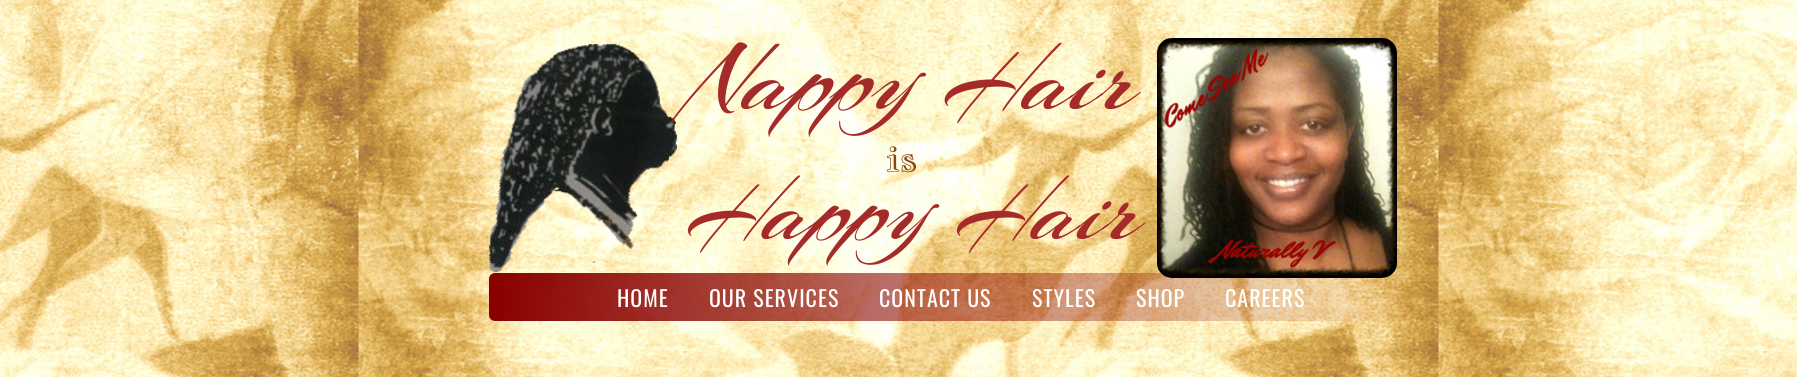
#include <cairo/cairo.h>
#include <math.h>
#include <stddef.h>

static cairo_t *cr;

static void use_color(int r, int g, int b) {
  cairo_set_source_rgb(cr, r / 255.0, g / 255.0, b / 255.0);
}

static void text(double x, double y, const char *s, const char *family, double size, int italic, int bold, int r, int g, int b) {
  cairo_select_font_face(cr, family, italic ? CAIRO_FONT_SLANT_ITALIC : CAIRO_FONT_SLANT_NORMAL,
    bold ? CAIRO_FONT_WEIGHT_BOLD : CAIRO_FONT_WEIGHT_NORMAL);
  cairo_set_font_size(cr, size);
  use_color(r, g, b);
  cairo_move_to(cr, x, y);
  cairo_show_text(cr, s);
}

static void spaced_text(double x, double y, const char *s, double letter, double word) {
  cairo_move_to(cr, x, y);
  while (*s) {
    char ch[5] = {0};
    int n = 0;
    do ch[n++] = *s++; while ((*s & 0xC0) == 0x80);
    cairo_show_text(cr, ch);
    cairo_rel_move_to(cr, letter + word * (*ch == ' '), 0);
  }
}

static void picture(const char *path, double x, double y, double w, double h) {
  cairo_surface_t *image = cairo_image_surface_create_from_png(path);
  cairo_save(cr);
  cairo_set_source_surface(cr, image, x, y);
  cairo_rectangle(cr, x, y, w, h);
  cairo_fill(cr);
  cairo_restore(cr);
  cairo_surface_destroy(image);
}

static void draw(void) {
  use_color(255, 255, 255);
  cairo_paint(cr);
  picture("img_01.png", 0, 0, 1797, 377);
  picture("img_02.png", 489, 44, 188, 228);
  picture("img_03.png", 1157, 38, 240, 240);
  text(682, 109, "Nappy Hair", "Arizonia", 100, 1, 0, 165, 42, 42);
  text(683, 239, "Happy Hair", "Arizonia", 96, 1, 0, 165, 42, 42);
  text(886, 171, "is", "Jacques Francois Shadow", 36, 0, 0, 139, 69, 19);
  cairo_select_font_face(cr, "Oswald", CAIRO_FONT_SLANT_NORMAL, CAIRO_FONT_WEIGHT_NORMAL);
  cairo_set_font_size(cr, 22);
  use_color(255, 255, 255);
  spaced_text(617, 307, "HOME", 1, 0);
  spaced_text(709, 307, "OUR SERVICES", 1, 0);
  spaced_text(879, 307, "CONTACT US", 1, 0);
  spaced_text(1032, 307, "STYLES", 1, 0);
  spaced_text(1136, 307, "SHOP", 1, 0);
  spaced_text(1225, 307, "CAREERS", 1, 0);
}

int main(void) {
  cairo_surface_t *surface = cairo_image_surface_create(CAIRO_FORMAT_RGB24, 1797, 377);
  cr = cairo_create(surface);
  cairo_font_options_t *options = cairo_font_options_create();
  cairo_font_options_set_hint_metrics(options, CAIRO_HINT_METRICS_OFF);
  cairo_font_options_set_hint_style(options, CAIRO_HINT_STYLE_NONE);
  cairo_set_font_options(cr, options);
  cairo_set_miter_limit(cr, 4);
  draw();
  cairo_surface_write_to_png(surface, "out.png");
  cairo_font_options_destroy(options);
  cairo_destroy(cr);
  cairo_surface_destroy(surface);
  return 0;
}
